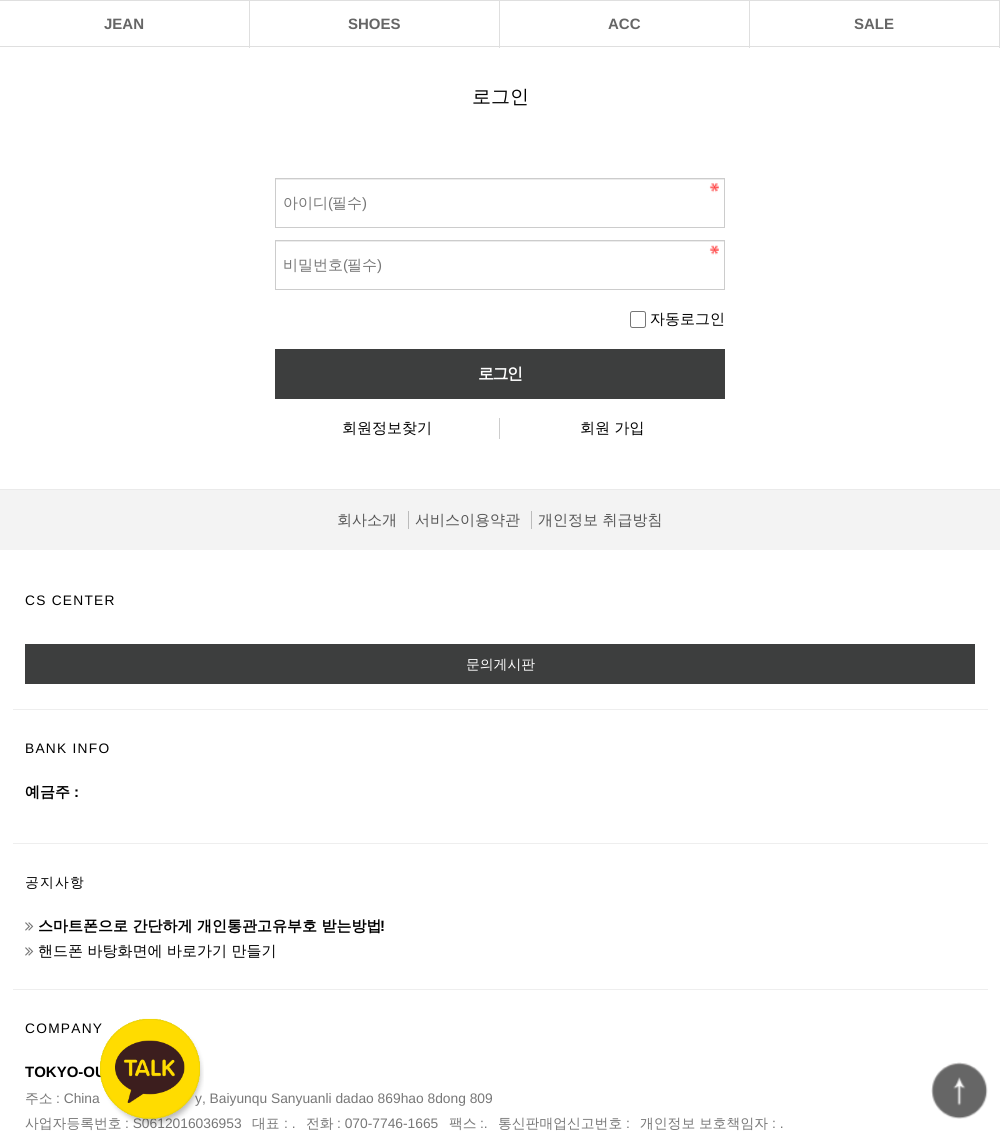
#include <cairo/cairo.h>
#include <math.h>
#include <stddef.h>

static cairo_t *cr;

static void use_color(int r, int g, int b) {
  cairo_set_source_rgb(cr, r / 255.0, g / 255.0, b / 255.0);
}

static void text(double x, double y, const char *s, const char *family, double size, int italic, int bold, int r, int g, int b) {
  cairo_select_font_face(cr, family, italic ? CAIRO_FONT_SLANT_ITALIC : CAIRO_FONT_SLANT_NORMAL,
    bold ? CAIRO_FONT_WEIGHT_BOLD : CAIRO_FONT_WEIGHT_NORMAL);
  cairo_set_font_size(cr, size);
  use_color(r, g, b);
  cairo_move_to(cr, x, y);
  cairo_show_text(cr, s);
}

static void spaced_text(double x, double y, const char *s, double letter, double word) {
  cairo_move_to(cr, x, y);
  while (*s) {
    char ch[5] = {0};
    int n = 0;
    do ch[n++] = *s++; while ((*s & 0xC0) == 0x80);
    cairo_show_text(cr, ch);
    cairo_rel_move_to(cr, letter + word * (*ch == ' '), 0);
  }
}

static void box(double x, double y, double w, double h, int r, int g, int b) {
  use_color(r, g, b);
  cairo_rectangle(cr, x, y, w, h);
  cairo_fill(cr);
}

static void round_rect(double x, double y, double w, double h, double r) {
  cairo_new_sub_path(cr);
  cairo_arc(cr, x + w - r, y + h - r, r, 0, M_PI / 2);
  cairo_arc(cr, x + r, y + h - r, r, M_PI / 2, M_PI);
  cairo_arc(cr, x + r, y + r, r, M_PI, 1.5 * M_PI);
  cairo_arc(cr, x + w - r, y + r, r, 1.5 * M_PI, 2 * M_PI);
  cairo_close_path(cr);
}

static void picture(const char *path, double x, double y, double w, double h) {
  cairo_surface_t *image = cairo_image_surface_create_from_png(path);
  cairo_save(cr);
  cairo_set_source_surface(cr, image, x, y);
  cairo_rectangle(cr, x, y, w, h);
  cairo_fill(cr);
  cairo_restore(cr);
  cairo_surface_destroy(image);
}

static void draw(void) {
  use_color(255, 255, 255);
  cairo_paint(cr);
  box(0, 0, 1000, 1, 223, 223, 223);
  box(249, 1, 1, 47, 223, 223, 223);
  box(0, 46, 250, 1, 223, 223, 223);
  box(499, 1, 1, 47, 223, 223, 223);
  box(250, 46, 250, 1, 223, 223, 223);
  box(749, 1, 1, 47, 223, 223, 223);
  box(500, 46, 250, 1, 223, 223, 223);
  box(999, 1, 1, 47, 223, 223, 223);
  box(750, 46, 250, 1, 223, 223, 223);
  picture("img_01.png", 709, 183, 10, 10);
  box(276, 179, 448, 1, 236, 236, 236);
  cairo_rectangle(cr, 275.5, 178.5, 449, 49);
  use_color(204, 204, 204);
  cairo_set_line_width(cr, 1);
  cairo_stroke(cr);
  picture("img_02.png", 709, 245, 10, 10);
  box(276, 241, 448, 1, 236, 236, 236);
  cairo_rectangle(cr, 275.5, 240.5, 449, 49);
  use_color(204, 204, 204);
  cairo_stroke(cr);
  round_rect(630.5, 311.5, 15, 16, 2);
  use_color(118, 118, 118);
  cairo_stroke(cr);
  box(275, 349, 450, 50, 61, 62, 62);
  box(499, 418, 1, 21, 205, 205, 205);
  box(0, 489, 1000, 1, 234, 234, 234);
  box(0, 490, 1000, 60, 243, 243, 243);
  box(408, 511, 1, 18, 187, 187, 187);
  box(531, 511, 1, 18, 187, 187, 187);
  box(25, 644, 950, 40, 61, 62, 62);
  box(13, 709, 975, 1, 238, 238, 238);
  box(13, 843, 975, 1, 238, 238, 238);
  picture("img_03.png", 25, 922, 9, 9);
  picture("img_03.png", 25, 947, 9, 9);
  box(13, 989, 975, 1, 238, 238, 238);
  picture("img_06.png", 931, 1062, 57, 57);
  text(104, 29, "JEAN", "Liberation Sans", 15, 0, 1, 102, 102, 102);
  text(348, 29, "SHOES", "Liberation Sans", 15, 0, 1, 102, 102, 102);
  text(608, 29, "ACC", "Liberation Sans", 15, 0, 1, 102, 102, 102);
  text(854, 29, "SALE", "Liberation Sans", 15, 0, 1, 102, 102, 102);
  text(472, 103, "로그인", "WenQuanYi Zen Hei Medium", 19, 0, 0, 0, 0, 0);
  text(283, 208, "아이디", "WenQuanYi Zen Hei Medium", 15, 0, 0, 119, 119, 119);
  text(328, 208, "(", "Liberation Sans", 15, 0, 0, 119, 119, 119);
  text(332, 208, "필수", "WenQuanYi Zen Hei Medium", 15, 0, 0, 119, 119, 119);
  text(362, 208, ")", "Liberation Sans", 15, 0, 0, 119, 119, 119);
  text(283, 270, "비밀번호", "WenQuanYi Zen Hei Medium", 15, 0, 0, 119, 119, 119);
  text(343, 270, "(", "Liberation Sans", 15, 0, 0, 119, 119, 119);
  text(347, 270, "필수", "WenQuanYi Zen Hei Medium", 15, 0, 0, 119, 119, 119);
  text(377, 270, ")", "Liberation Sans", 15, 0, 0, 119, 119, 119);
  text(650, 324, "자동로그인", "WenQuanYi Zen Hei Medium", 15, 0, 0, 0, 0, 0);
  cairo_select_font_face(cr, "WenQuanYi Zen Hei", CAIRO_FONT_SLANT_NORMAL, CAIRO_FONT_WEIGHT_BOLD);
  cairo_set_font_size(cr, 16);
  use_color(255, 255, 255);
  spaced_text(478, 379, "로그인", -1.5, 0);
  text(342, 433, "회원정보찾기", "WenQuanYi Zen Hei Medium", 15, 0, 0, 0, 0, 0);
  text(580, 433, "회원 가입", "WenQuanYi Zen Hei Medium", 15, 0, 0, 0, 0, 0);
  text(337, 525, "회사소개", "WenQuanYi Zen Hei Medium", 15, 0, 0, 85, 85, 85);
  text(415, 525, "서비스이용약관", "WenQuanYi Zen Hei Medium", 15, 0, 0, 85, 85, 85);
  text(538, 525, "개인정보 취급방침", "WenQuanYi Zen Hei Medium", 15, 0, 0, 85, 85, 85);
  cairo_select_font_face(cr, "Liberation Sans", CAIRO_FONT_SLANT_NORMAL, CAIRO_FONT_WEIGHT_NORMAL);
  cairo_set_font_size(cr, 13.75);
  use_color(0, 0, 0);
  spaced_text(25, 605, "CS CENTER", 1.25, 0);
  text(466, 669, "문의게시판", "WenQuanYi Zen Hei Medium", 13.8, 0, 0, 255, 255, 255);
  cairo_select_font_face(cr, "Liberation Sans", CAIRO_FONT_SLANT_NORMAL, CAIRO_FONT_WEIGHT_NORMAL);
  cairo_set_font_size(cr, 13.75);
  use_color(0, 0, 0);
  spaced_text(25, 753, "BANK INFO", 1.25, 0);
  text(25, 797, "예금주", "WenQuanYi Zen Hei", 15, 0, 1, 0, 0, 0);
  text(74, 797, ":", "Liberation Sans", 15, 0, 1, 0, 0, 0);
  cairo_select_font_face(cr, "WenQuanYi Zen Hei Medium", CAIRO_FONT_SLANT_NORMAL, CAIRO_FONT_WEIGHT_NORMAL);
  cairo_set_font_size(cr, 13.75);
  spaced_text(25, 887, "공지사항", 1.25, 0);
  text(38, 931, "스마트폰으로 간단하게 개인통관고유부호 받는방법", "WenQuanYi Zen Hei", 15, 0, 1, 0, 0, 0);
  text(380, 931, "!", "Liberation Sans", 15, 0, 1, 0, 0, 0);
  text(38, 956, "핸드폰 바탕화면에 바로가기 만들기", "WenQuanYi Zen Hei Medium", 15, 0, 0, 0, 0, 0);
  cairo_select_font_face(cr, "Liberation Sans", CAIRO_FONT_SLANT_NORMAL, CAIRO_FONT_WEIGHT_NORMAL);
  cairo_set_font_size(cr, 13.75);
  spaced_text(25, 1033, "COMPANY", 1.25, 0);
  text(25, 1077, "TOKYO-OU", "Liberation Sans", 15, 0, 1, 0, 0, 0);
  text(25, 1103, "주소", "WenQuanYi Zen Hei Medium", 13.8, 0, 0, 119, 119, 119);
  text(56, 1103, ": China", "Liberation Sans", 13.8, 0, 0, 119, 119, 119);
  text(195, 1103, "y, Baiyunqu Sanyuanli dadao 869hao 8dong 809", "Liberation Sans", 13.8, 0, 0, 119, 119, 119);
  text(25, 1128, "사업자등록번호", "WenQuanYi Zen Hei Medium", 13.8, 0, 0, 119, 119, 119);
  text(125, 1128, ": S0612016036953", "Liberation Sans", 13.8, 0, 0, 119, 119, 119);
  text(252, 1128, "대표", "WenQuanYi Zen Hei Medium", 13.8, 0, 0, 119, 119, 119);
  text(284, 1128, ": .", "Liberation Sans", 13.8, 0, 0, 119, 119, 119);
  text(306, 1128, "전화", "WenQuanYi Zen Hei Medium", 13.8, 0, 0, 119, 119, 119);
  text(337, 1128, ": 070-7746-1665", "Liberation Sans", 13.8, 0, 0, 119, 119, 119);
  text(449, 1128, "팩스", "WenQuanYi Zen Hei Medium", 13.8, 0, 0, 119, 119, 119);
  text(480, 1128, ":.", "Liberation Sans", 13.8, 0, 0, 119, 119, 119);
  text(498, 1128, "통신판매업신고번호", "WenQuanYi Zen Hei Medium", 13.8, 0, 0, 119, 119, 119);
  text(626, 1128, ":", "Liberation Sans", 13.8, 0, 0, 119, 119, 119);
  text(640, 1128, "개인정보", "WenQuanYi Zen Hei Medium", 13.8, 0, 0, 119, 119, 119);
  text(699, 1128, "보호책임자", "WenQuanYi Zen Hei Medium", 13.8, 0, 0, 119, 119, 119);
  text(772, 1128, ": .", "Liberation Sans", 13.8, 0, 0, 119, 119, 119);
  picture("img_04.png", 105, 1035, 99, 92);
  picture("img_05.png", 100, 1018, 100, 101);
}

int main(void) {
  cairo_surface_t *surface = cairo_image_surface_create(CAIRO_FORMAT_RGB24, 1000, 1131);
  cr = cairo_create(surface);
  cairo_font_options_t *options = cairo_font_options_create();
  cairo_font_options_set_hint_metrics(options, CAIRO_HINT_METRICS_OFF);
  cairo_font_options_set_hint_style(options, CAIRO_HINT_STYLE_NONE);
  cairo_set_font_options(cr, options);
  cairo_set_miter_limit(cr, 4);
  draw();
  cairo_surface_write_to_png(surface, "out.png");
  cairo_font_options_destroy(options);
  cairo_destroy(cr);
  cairo_surface_destroy(surface);
  return 0;
}
